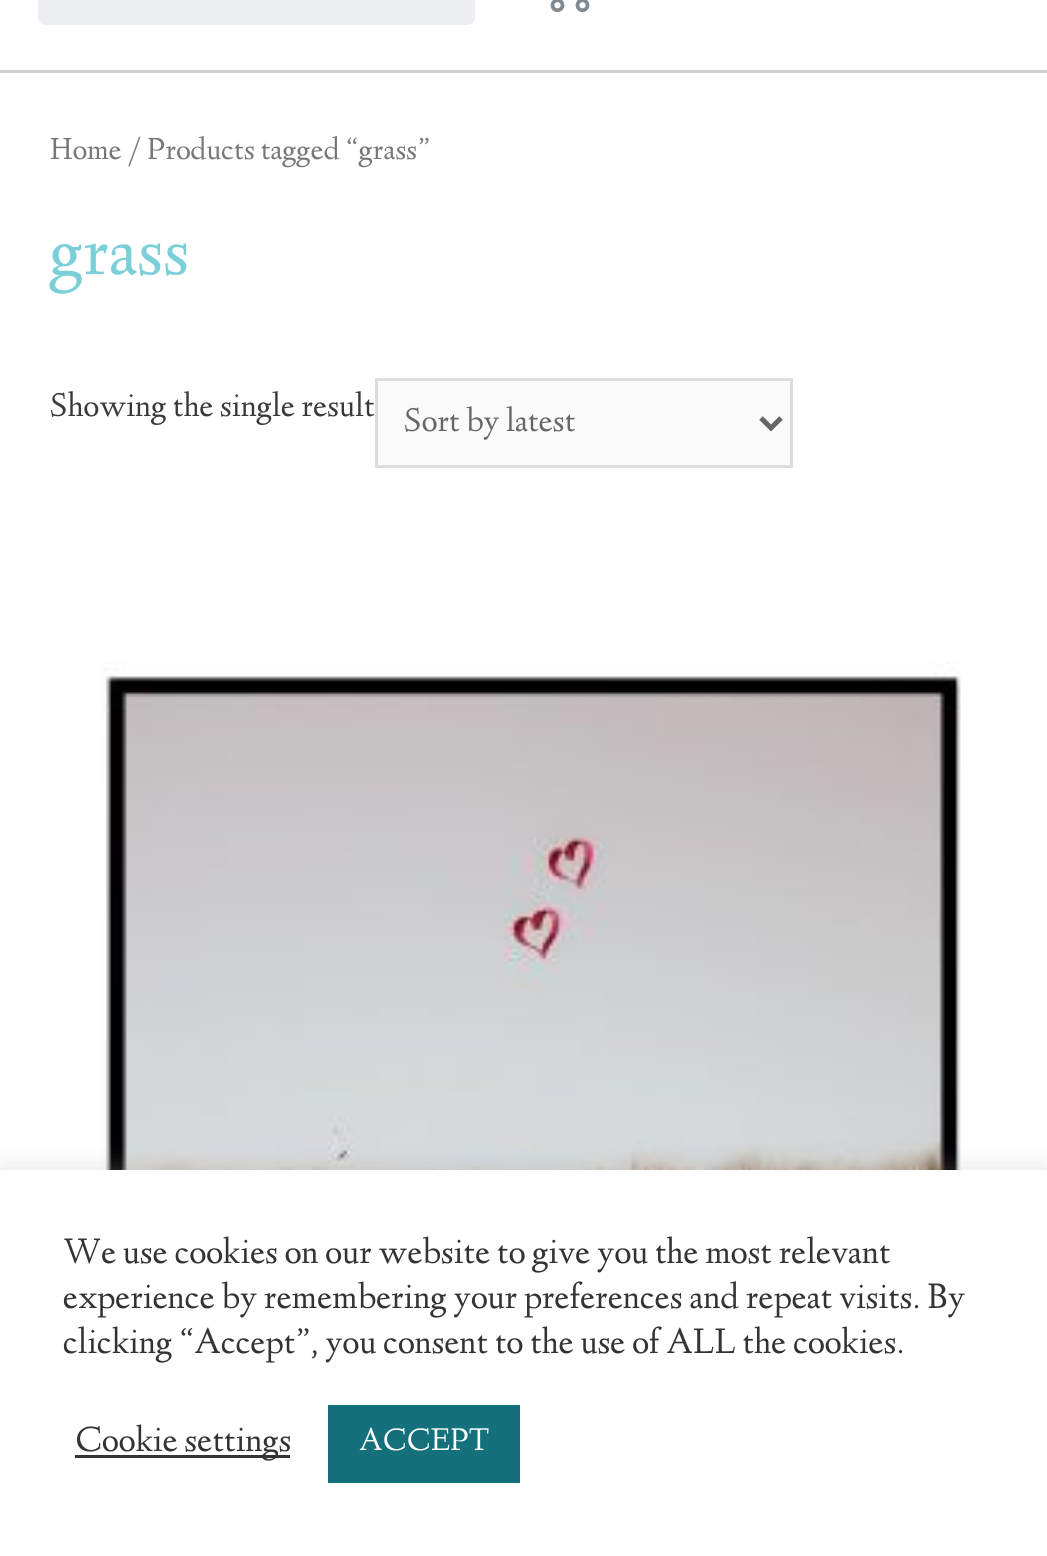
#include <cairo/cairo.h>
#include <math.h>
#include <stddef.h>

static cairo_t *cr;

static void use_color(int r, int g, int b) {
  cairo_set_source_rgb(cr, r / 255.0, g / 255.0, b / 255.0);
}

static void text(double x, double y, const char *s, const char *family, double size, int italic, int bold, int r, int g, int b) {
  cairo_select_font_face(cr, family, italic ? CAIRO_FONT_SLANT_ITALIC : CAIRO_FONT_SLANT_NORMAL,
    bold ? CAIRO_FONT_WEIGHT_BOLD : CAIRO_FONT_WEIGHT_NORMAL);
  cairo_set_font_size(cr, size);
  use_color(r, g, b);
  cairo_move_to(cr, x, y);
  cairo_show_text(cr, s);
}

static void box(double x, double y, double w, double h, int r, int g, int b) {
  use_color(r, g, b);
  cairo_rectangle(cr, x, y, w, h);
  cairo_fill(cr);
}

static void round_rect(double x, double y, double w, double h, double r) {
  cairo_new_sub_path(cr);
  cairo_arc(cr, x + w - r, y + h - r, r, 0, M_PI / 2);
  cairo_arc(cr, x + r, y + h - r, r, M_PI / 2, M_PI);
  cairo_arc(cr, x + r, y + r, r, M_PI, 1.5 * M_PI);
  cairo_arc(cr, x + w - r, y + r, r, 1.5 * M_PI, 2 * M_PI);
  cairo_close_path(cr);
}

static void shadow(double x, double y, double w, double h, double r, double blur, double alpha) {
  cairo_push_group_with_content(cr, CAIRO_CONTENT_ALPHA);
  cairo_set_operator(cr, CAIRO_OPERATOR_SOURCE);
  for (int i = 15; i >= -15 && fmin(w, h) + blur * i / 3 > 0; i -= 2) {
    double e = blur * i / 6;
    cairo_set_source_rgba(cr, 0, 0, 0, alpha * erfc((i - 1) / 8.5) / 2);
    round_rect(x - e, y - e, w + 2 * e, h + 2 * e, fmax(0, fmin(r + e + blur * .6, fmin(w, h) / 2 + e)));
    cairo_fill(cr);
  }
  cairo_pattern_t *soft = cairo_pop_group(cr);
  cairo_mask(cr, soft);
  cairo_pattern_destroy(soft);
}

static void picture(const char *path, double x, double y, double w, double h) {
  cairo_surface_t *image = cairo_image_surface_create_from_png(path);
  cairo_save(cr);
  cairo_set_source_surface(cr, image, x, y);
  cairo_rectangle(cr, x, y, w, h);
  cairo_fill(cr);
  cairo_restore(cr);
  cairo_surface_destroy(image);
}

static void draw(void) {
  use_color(255, 255, 255);
  cairo_paint(cr);
  box(0, 70, 1047, 3, 209, 209, 209);
  use_color(236, 238, 239);
  round_rect(38, -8, 437, 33, 8);
  cairo_fill(cr);
  picture("img_01.png", 550, 0, 40, 13);
  use_color(250, 250, 250);
  cairo_rectangle(cr, 376.5, 379.5, 415, 87);
  cairo_fill_preserve(cr);
  use_color(221, 221, 221);
  cairo_set_line_width(cr, 3);
  cairo_stroke(cr);
  cairo_new_path(cr);
  cairo_move_to(cr, 761, 418);
  cairo_line_to(cr, 771, 428);
  cairo_line_to(cr, 781, 418);
  use_color(102, 102, 102);
  cairo_set_line_width(cr, 5);
  cairo_stroke(cr);
  picture("img_02.png", 100, 662, 861, 508);
  use_color(172, 171, 171);
  shadow(0, 1168, 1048, 387, 0, 12.5, 0.3);
  box(0, 1170, 1047, 386, 255, 255, 255);
  box(75, 1455, 215, 3, 51, 51, 51);
  box(328, 1405, 192, 78, 20, 112, 123);
  text(50, 159, "Home / Products tagged “grass”", "Linden Hill", 31.5, 0, 0, 119, 119, 119);
  text(50, 274, "grass", "Linden Hill", 75, 0, 0, 122, 207, 217);
  text(50, 416, "Showing the single result", "Linden Hill", 34.25, 0, 0, 58, 58, 58);
  text(404, 431, "Sort by latest", "Linden Hill", 34.25, 0, 0, 102, 102, 102);
  text(63, 1263, "We use cookies on our website to give you the most relevant", "Linden Hill", 36.7, 0, 0, 51, 51, 51);
  text(63, 1308, "experience by remembering your preferences and repeat visits. By", "Linden Hill", 36.7, 0, 0, 51, 51, 51);
  text(63, 1353, "clicking “Accept”, you consent to the use of ALL the cookies.", "Linden Hill", 36.7, 0, 0, 51, 51, 51);
  text(75, 1451, "Cookie settings", "Linden Hill", 36.7, 0, 0, 51, 51, 51);
  text(359, 1450, "ACCEPT", "Linden Hill", 32.5, 0, 0, 255, 255, 255);
}

int main(void) {
  cairo_surface_t *surface = cairo_image_surface_create(CAIRO_FORMAT_RGB24, 1047, 1556);
  cr = cairo_create(surface);
  cairo_font_options_t *options = cairo_font_options_create();
  cairo_font_options_set_hint_metrics(options, CAIRO_HINT_METRICS_OFF);
  cairo_font_options_set_hint_style(options, CAIRO_HINT_STYLE_NONE);
  cairo_set_font_options(cr, options);
  cairo_set_miter_limit(cr, 4);
  draw();
  cairo_surface_write_to_png(surface, "out.png");
  cairo_font_options_destroy(options);
  cairo_destroy(cr);
  cairo_surface_destroy(surface);
  return 0;
}
